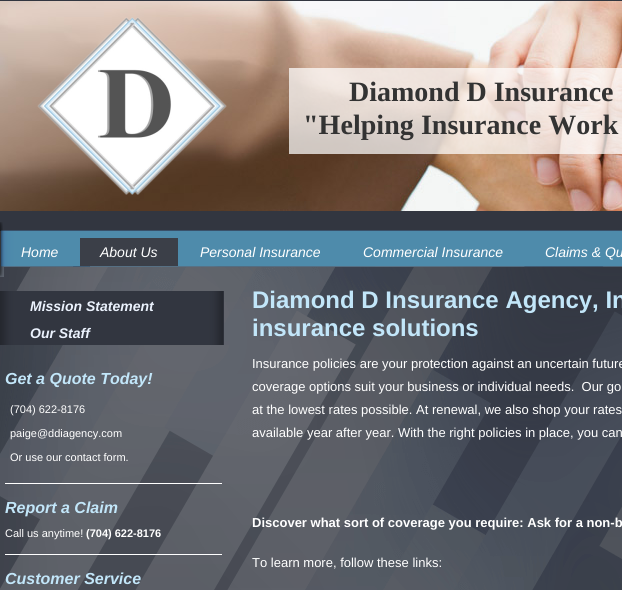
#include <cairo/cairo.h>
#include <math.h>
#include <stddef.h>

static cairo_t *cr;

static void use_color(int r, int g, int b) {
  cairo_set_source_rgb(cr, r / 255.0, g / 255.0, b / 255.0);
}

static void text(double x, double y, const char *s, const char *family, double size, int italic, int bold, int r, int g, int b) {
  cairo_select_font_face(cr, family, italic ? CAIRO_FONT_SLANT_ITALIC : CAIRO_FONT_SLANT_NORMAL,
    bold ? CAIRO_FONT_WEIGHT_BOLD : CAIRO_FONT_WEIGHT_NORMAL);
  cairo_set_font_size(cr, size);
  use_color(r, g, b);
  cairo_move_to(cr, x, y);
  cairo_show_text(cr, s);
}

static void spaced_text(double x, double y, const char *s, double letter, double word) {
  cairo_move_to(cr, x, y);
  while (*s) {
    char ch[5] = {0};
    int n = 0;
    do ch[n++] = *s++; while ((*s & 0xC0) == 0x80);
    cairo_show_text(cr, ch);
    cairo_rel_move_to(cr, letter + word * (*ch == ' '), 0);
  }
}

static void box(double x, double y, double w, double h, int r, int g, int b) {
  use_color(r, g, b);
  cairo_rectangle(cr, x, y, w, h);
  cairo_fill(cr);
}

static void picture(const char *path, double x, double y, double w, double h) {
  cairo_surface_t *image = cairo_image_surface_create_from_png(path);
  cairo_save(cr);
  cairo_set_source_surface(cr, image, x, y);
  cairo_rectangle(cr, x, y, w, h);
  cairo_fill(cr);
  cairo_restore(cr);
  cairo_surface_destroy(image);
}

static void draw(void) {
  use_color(50, 54, 64);
  cairo_paint(cr);
  picture("img_01.png", 0, 267, 622, 323);
  picture("img_02.png", 0, 1, 622, 210);
  picture("img_03.png", 37, 17, 190, 178);
  cairo_set_source_rgba(cr, 1, 1, 1, 0.72);
  cairo_rectangle(cr, 289, 68, 333, 86);
  cairo_fill(cr);
  picture("img_04.png", 0, 222, 622, 9);
  picture("img_05.png", 0, 231, 622, 35);
  box(80, 238, 98, 28, 59, 63, 72);
  picture("img_06.png", 0, 266, 622, 11);
  box(223, 291, 1, 54, 46, 49, 58);
  picture("img_07.png", 0, 291, 223, 54);
  box(5, 483, 217, 1, 255, 255, 255);
  box(5, 554, 217, 1, 255, 255, 255);
  text(349, 101, "Diamond D Insurance", "Liberation Serif", 28, 0, 1, 51, 51, 51);
  spaced_text(303, 134, "\"Helping Insurance Work", 0.05, 0);
  text(21, 257, "Home", "Liberation Sans", 14, 1, 0, 255, 255, 255);
  text(100, 257, "About Us", "Liberation Sans", 14, 1, 0, 255, 255, 255);
  text(200, 257, "Personal Insurance", "Liberation Sans", 14, 1, 0, 255, 255, 255);
  text(363, 257, "Commercial Insurance", "Liberation Sans", 14, 1, 0, 255, 255, 255);
  text(545, 257, "Claims & Qu", "Liberation Sans", 14, 1, 0, 255, 255, 255);
  text(30, 311, "Mission Statement", "Liberation Sans", 14, 1, 1, 235, 242, 253);
  text(30, 338, "Our Staff", "Liberation Sans", 14, 1, 1, 235, 242, 253);
  text(5, 384, "Get a Quote Today!", "Liberation Sans", 16, 1, 1, 194, 230, 249);
  text(10, 413, "(704) 622-8176", "Liberation Sans", 11, 0, 0, 255, 255, 255);
  text(10, 437, "paige@ddiagency.com", "Liberation Sans", 11, 0, 0, 255, 255, 255);
  text(10, 461, "Or use our contact form.", "Liberation Sans", 11, 0, 0, 255, 255, 255);
  text(5, 513, "Report a Claim", "Liberation Sans", 16, 1, 1, 194, 230, 249);
  text(5, 537, "Call us anytime!", "Liberation Sans", 11, 0, 0, 255, 255, 255);
  text(86, 537, "(704) 622-8176", "Liberation Sans", 11, 0, 1, 255, 255, 255);
  text(5, 584, "Customer Service", "Liberation Sans", 16, 1, 1, 194, 230, 249);
  text(252, 308, "Diamond D Insurance Agency, In", "Liberation Sans", 24, 0, 1, 194, 230, 249);
  text(252, 336, "insurance solutions", "Liberation Sans", 24, 0, 1, 194, 230, 249);
  text(252, 368, "Insurance policies are your protection against an uncertain future", "Liberation Sans", 13, 0, 0, 255, 255, 255);
  text(252, 391, "coverage options suit your business or individual needs.  Our go", "Liberation Sans", 13, 0, 0, 255, 255, 255);
  text(252, 414, "at the lowest rates possible. At renewal, we also shop your rates", "Liberation Sans", 13, 0, 0, 255, 255, 255);
  text(252, 437, "available year after year. With the right policies in place, you can", "Liberation Sans", 13, 0, 0, 255, 255, 255);
  text(252, 527, "Discover what sort of coverage you require: Ask for a non-b", "Liberation Sans", 13, 0, 1, 255, 255, 255);
  text(252, 567, "To learn more, follow these links:", "Liberation Sans", 13, 0, 0, 255, 255, 255);
}

int main(void) {
  cairo_surface_t *surface = cairo_image_surface_create(CAIRO_FORMAT_RGB24, 622, 590);
  cr = cairo_create(surface);
  cairo_font_options_t *options = cairo_font_options_create();
  cairo_font_options_set_hint_metrics(options, CAIRO_HINT_METRICS_OFF);
  cairo_font_options_set_hint_style(options, CAIRO_HINT_STYLE_NONE);
  cairo_set_font_options(cr, options);
  cairo_set_miter_limit(cr, 4);
  draw();
  cairo_surface_write_to_png(surface, "out.png");
  cairo_font_options_destroy(options);
  cairo_destroy(cr);
  cairo_surface_destroy(surface);
  return 0;
}
